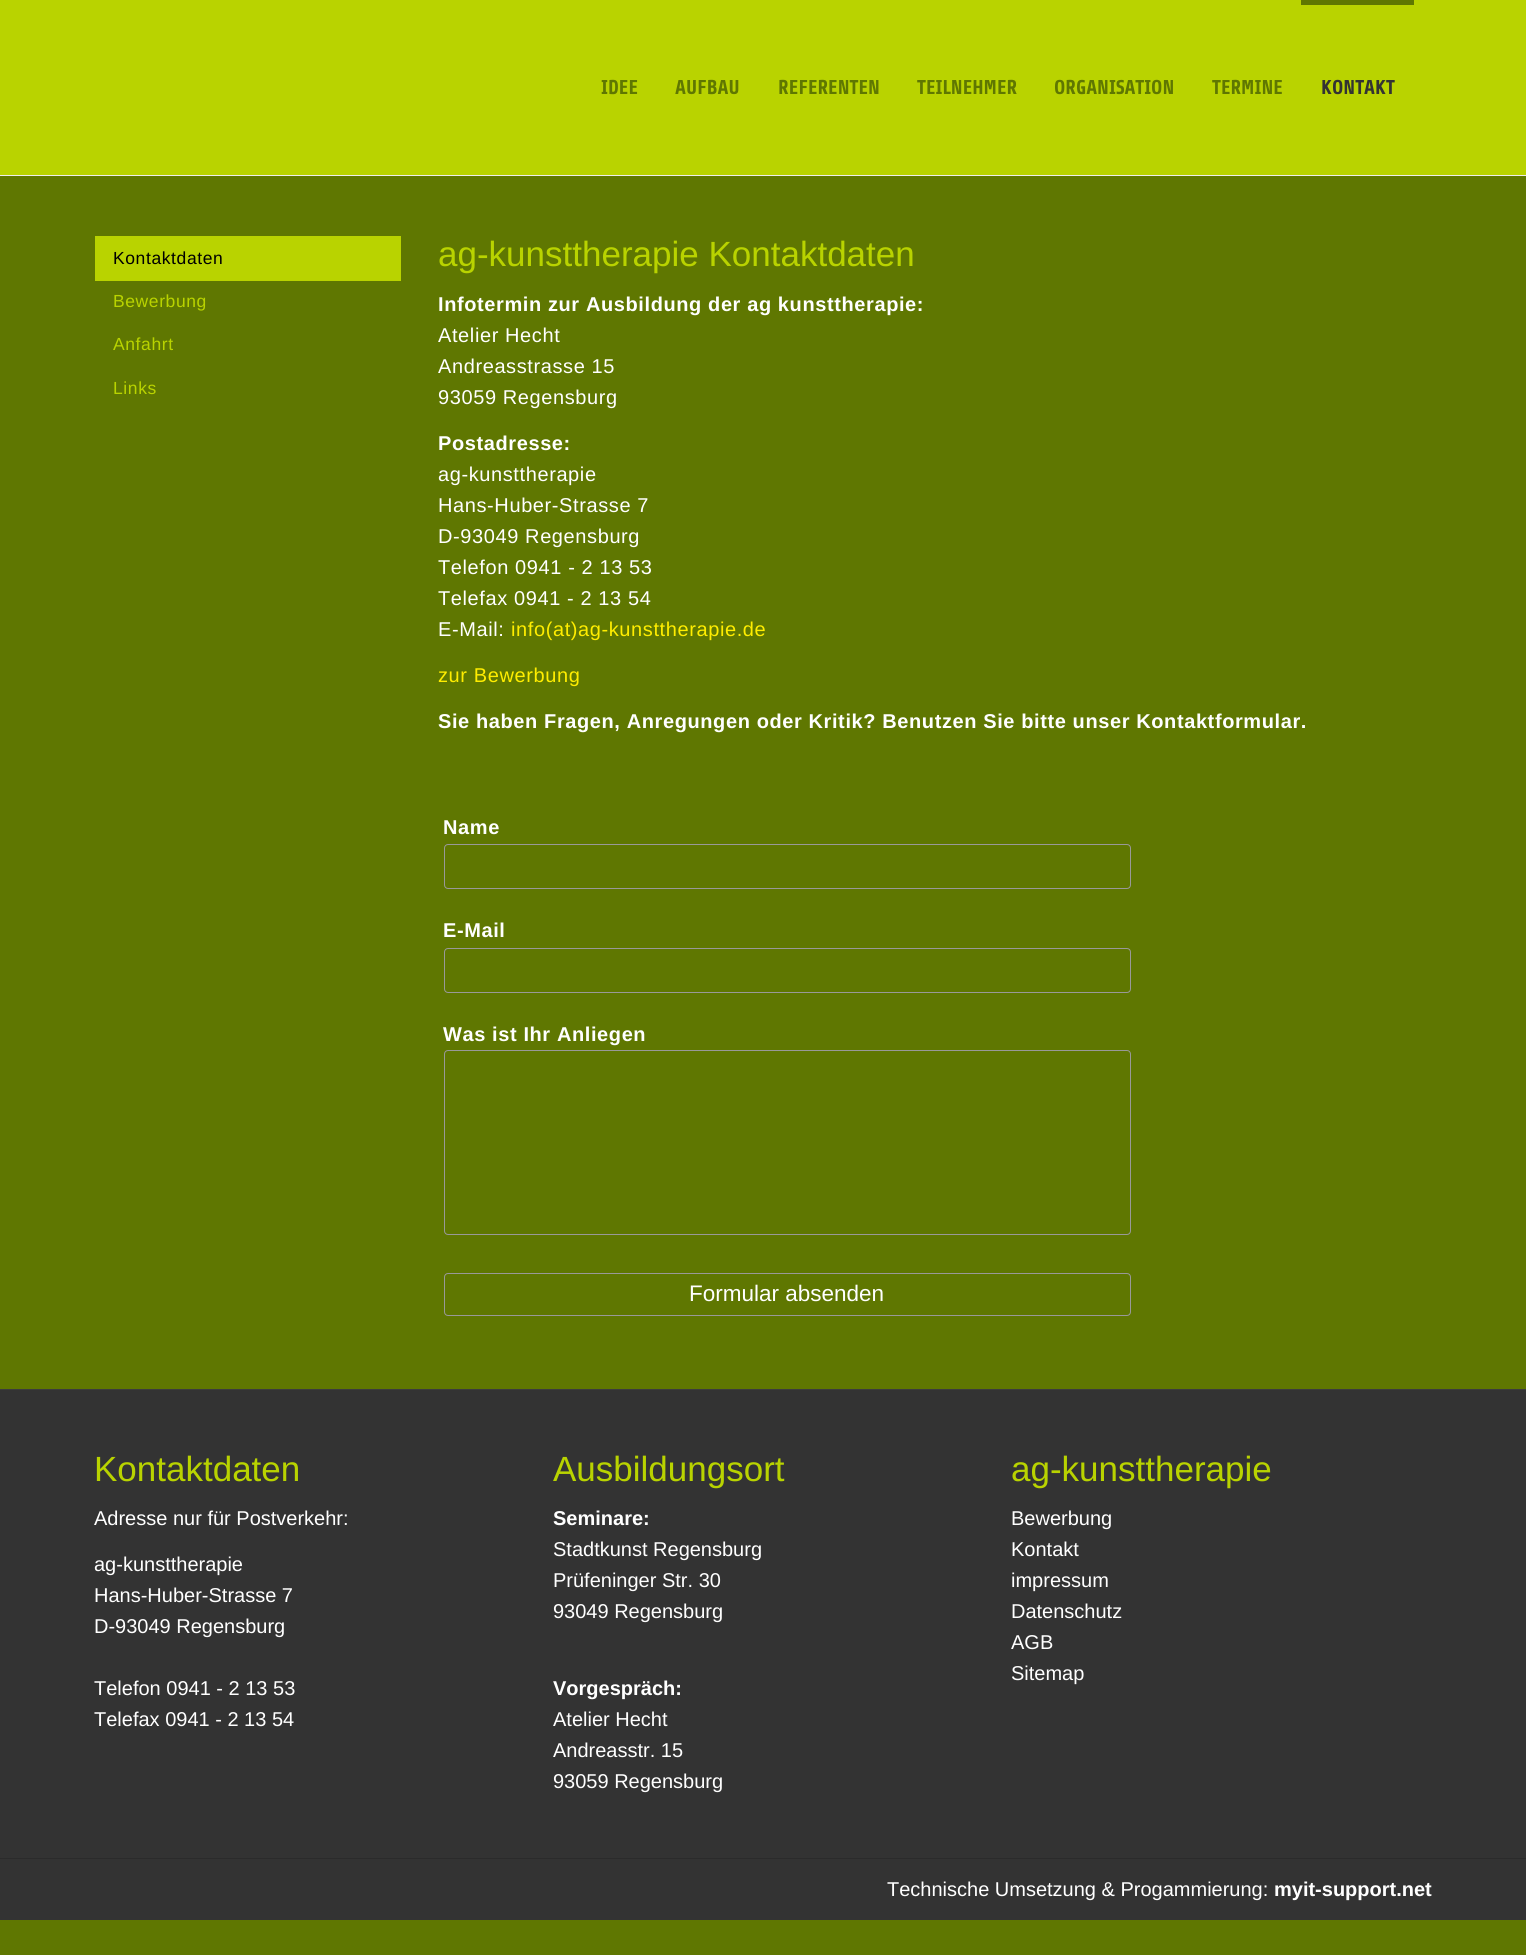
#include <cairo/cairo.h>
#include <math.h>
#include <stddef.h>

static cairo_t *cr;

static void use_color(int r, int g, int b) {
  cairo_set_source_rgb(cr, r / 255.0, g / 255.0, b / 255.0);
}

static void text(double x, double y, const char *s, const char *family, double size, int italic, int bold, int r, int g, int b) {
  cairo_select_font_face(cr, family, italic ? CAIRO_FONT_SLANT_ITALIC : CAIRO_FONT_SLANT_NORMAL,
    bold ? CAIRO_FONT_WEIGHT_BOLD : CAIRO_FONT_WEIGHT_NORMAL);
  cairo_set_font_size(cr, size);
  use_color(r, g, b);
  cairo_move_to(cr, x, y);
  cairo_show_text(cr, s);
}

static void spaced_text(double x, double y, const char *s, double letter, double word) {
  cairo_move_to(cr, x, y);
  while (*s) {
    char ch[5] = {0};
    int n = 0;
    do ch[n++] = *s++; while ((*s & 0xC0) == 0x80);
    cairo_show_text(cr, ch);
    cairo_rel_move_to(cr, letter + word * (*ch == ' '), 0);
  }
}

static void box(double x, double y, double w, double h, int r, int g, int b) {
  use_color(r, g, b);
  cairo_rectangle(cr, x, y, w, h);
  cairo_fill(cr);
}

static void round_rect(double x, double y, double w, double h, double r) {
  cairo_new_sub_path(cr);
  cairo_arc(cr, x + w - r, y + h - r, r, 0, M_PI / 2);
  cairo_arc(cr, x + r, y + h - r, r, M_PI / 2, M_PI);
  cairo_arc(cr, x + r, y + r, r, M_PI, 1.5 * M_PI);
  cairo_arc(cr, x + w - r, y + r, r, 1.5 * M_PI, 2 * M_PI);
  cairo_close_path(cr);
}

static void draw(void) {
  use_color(95, 119, 1);
  cairo_paint(cr);
  box(0, 0, 1526, 175, 185, 211, 0);
  box(0, 175, 1526, 1, 238, 238, 238);
  box(1301, 0, 113, 5, 95, 119, 1);
  box(95, 236, 306, 45, 185, 211, 0);
  round_rect(444.5, 844.5, 686, 44, 3.5);
  use_color(153, 153, 153);
  cairo_set_line_width(cr, 1);
  cairo_stroke(cr);
  round_rect(444.5, 948.5, 686, 44, 3.5);
  cairo_stroke(cr);
  round_rect(444.5, 1050.5, 686, 184, 3.5);
  cairo_stroke(cr);
  round_rect(444.5, 1273.5, 686, 42, 3.5);
  cairo_stroke(cr);
  box(0, 1390, 1526, 468, 51, 51, 51);
  box(0, 1389, 1526, 1, 60, 60, 60);
  box(0, 1859, 1526, 61, 51, 51, 51);
  box(0, 1858, 1526, 1, 43, 43, 43);
  text(601, 94, "IDEE", "Share", 20, 0, 1, 95, 119, 1);
  text(675, 94, "AUFBAU", "Share", 20, 0, 1, 95, 119, 1);
  text(778, 94, "REFERENTEN", "Share", 20, 0, 1, 95, 119, 1);
  text(917, 94, "TEILNEHMER", "Share", 20, 0, 1, 95, 119, 1);
  text(1054, 94, "ORGANISATION", "Share", 20, 0, 1, 95, 119, 1);
  text(1212, 94, "TERMINE", "Share", 20, 0, 1, 95, 119, 1);
  text(1321, 94, "KONTAKT", "Share", 20, 0, 1, 51, 51, 51);
  cairo_select_font_face(cr, "Liberation Sans", CAIRO_FONT_SLANT_NORMAL, CAIRO_FONT_WEIGHT_NORMAL);
  cairo_set_font_size(cr, 17.5);
  use_color(0, 0, 0);
  spaced_text(113, 264, "Kontaktdaten", 0.6, 0);
  use_color(185, 211, 0);
  spaced_text(113, 307, "Bewerbung", 0.6, 0);
  spaced_text(113, 350, "Anfahrt", 0.6, 0);
  spaced_text(113, 394, "Links", 0.6, 0);
  text(438, 266, "ag-kunsttherapie Kontaktdaten", "Liberation Sans", 35, 0, 0, 185, 211, 0);
  cairo_select_font_face(cr, "Liberation Sans", CAIRO_FONT_SLANT_NORMAL, CAIRO_FONT_WEIGHT_BOLD);
  cairo_set_font_size(cr, 20);
  use_color(255, 255, 255);
  spaced_text(438, 311, "Infotermin zur Ausbildung der ag kunsttherapie:", 0.6, 0);
  cairo_select_font_face(cr, "Liberation Sans", CAIRO_FONT_SLANT_NORMAL, CAIRO_FONT_WEIGHT_NORMAL);
  spaced_text(438, 342, "Atelier Hecht", 0.6, 0);
  spaced_text(438, 373, "Andreasstrasse 15", 0.6, 0);
  spaced_text(438, 404, "93059 Regensburg", 0.6, 0);
  cairo_select_font_face(cr, "Liberation Sans", CAIRO_FONT_SLANT_NORMAL, CAIRO_FONT_WEIGHT_BOLD);
  spaced_text(438, 450, "Postadresse:", 0.6, 0);
  cairo_select_font_face(cr, "Liberation Sans", CAIRO_FONT_SLANT_NORMAL, CAIRO_FONT_WEIGHT_NORMAL);
  spaced_text(438, 481, "ag-kunsttherapie", 0.6, 0);
  spaced_text(438, 512, "Hans-Huber-Strasse 7", 0.6, 0);
  spaced_text(438, 543, "D-93049 Regensburg", 0.6, 0);
  spaced_text(438, 574, "Telefon 0941 - 2 13 53", 0.6, 0);
  spaced_text(438, 605, "Telefax 0941 - 2 13 54", 0.6, 0);
  spaced_text(438, 636, "E-Mail:", 0.6, 0);
  use_color(255, 237, 0);
  spaced_text(511, 636, "info(at)ag-kunsttherapie.de", 0.6, 0);
  spaced_text(438, 682, "zur Bewerbung", 0.6, 0);
  cairo_select_font_face(cr, "Liberation Sans", CAIRO_FONT_SLANT_NORMAL, CAIRO_FONT_WEIGHT_BOLD);
  use_color(255, 255, 255);
  spaced_text(438, 728, "Sie haben Fragen, Anregungen oder Kritik? Benutzen Sie bitte unser Kontaktformular.", 0.6, 0);
  spaced_text(443, 834, "Name", 0.6, 0);
  spaced_text(443, 937, "E-Mail", 0.6, 0);
  spaced_text(443, 1041, "Was ist Ihr Anliegen", 0.6, 0);
  text(689, 1301, "Formular absenden", "Liberation Sans", 22.5, 0, 0, 255, 255, 255);
  text(94, 1481, "Kontaktdaten", "Liberation Sans", 35, 0, 0, 185, 211, 0);
  text(94, 1525, "Adresse nur für Postverkehr:", "Liberation Sans", 20, 0, 0, 255, 255, 255);
  text(94, 1571, "ag-kunsttherapie", "Liberation Sans", 20, 0, 0, 255, 255, 255);
  text(94, 1602, "Hans-Huber-Strasse 7", "Liberation Sans", 20, 0, 0, 255, 255, 255);
  text(94, 1633, "D-93049 Regensburg", "Liberation Sans", 20, 0, 0, 255, 255, 255);
  text(94, 1695, "Telefon 0941 - 2 13 53", "Liberation Sans", 20, 0, 0, 255, 255, 255);
  text(94, 1726, "Telefax 0941 - 2 13 54", "Liberation Sans", 20, 0, 0, 255, 255, 255);
  text(553, 1481, "Ausbildungsort", "Liberation Sans", 35, 0, 0, 185, 211, 0);
  text(553, 1525, "Seminare:", "Liberation Sans", 20, 0, 1, 255, 255, 255);
  text(553, 1556, "Stadtkunst Regensburg", "Liberation Sans", 20, 0, 0, 255, 255, 255);
  text(553, 1587, "Prüfeninger Str. 30", "Liberation Sans", 20, 0, 0, 255, 255, 255);
  text(553, 1618, "93049 Regensburg", "Liberation Sans", 20, 0, 0, 255, 255, 255);
  text(553, 1695, "Vorgespräch:", "Liberation Sans", 20, 0, 1, 255, 255, 255);
  text(553, 1726, "Atelier Hecht", "Liberation Sans", 20, 0, 0, 255, 255, 255);
  text(553, 1757, "Andreasstr. 15", "Liberation Sans", 20, 0, 0, 255, 255, 255);
  text(553, 1788, "93059 Regensburg", "Liberation Sans", 20, 0, 0, 255, 255, 255);
  text(1011, 1481, "ag-kunsttherapie", "Liberation Sans", 35, 0, 0, 185, 211, 0);
  text(1011, 1525, "Bewerbung", "Liberation Sans", 20, 0, 0, 255, 255, 255);
  text(1011, 1556, "Kontakt", "Liberation Sans", 20, 0, 0, 255, 255, 255);
  text(1011, 1587, "impressum", "Liberation Sans", 20, 0, 0, 255, 255, 255);
  text(1011, 1618, "Datenschutz", "Liberation Sans", 20, 0, 0, 255, 255, 255);
  text(1011, 1649, "AGB", "Liberation Sans", 20, 0, 0, 255, 255, 255);
  text(1011, 1680, "Sitemap", "Liberation Sans", 20, 0, 0, 255, 255, 255);
  text(887, 1896, "Technische Umsetzung & Progammierung:", "Liberation Sans", 20, 0, 0, 255, 255, 255);
  text(1274, 1896, "myit-support.net", "Liberation Sans", 20, 0, 1, 255, 255, 255);
}

int main(void) {
  cairo_surface_t *surface = cairo_image_surface_create(CAIRO_FORMAT_RGB24, 1526, 1955);
  cr = cairo_create(surface);
  cairo_font_options_t *options = cairo_font_options_create();
  cairo_font_options_set_hint_metrics(options, CAIRO_HINT_METRICS_OFF);
  cairo_font_options_set_hint_style(options, CAIRO_HINT_STYLE_NONE);
  cairo_set_font_options(cr, options);
  cairo_set_miter_limit(cr, 4);
  draw();
  cairo_surface_write_to_png(surface, "out.png");
  cairo_font_options_destroy(options);
  cairo_destroy(cr);
  cairo_surface_destroy(surface);
  return 0;
}
